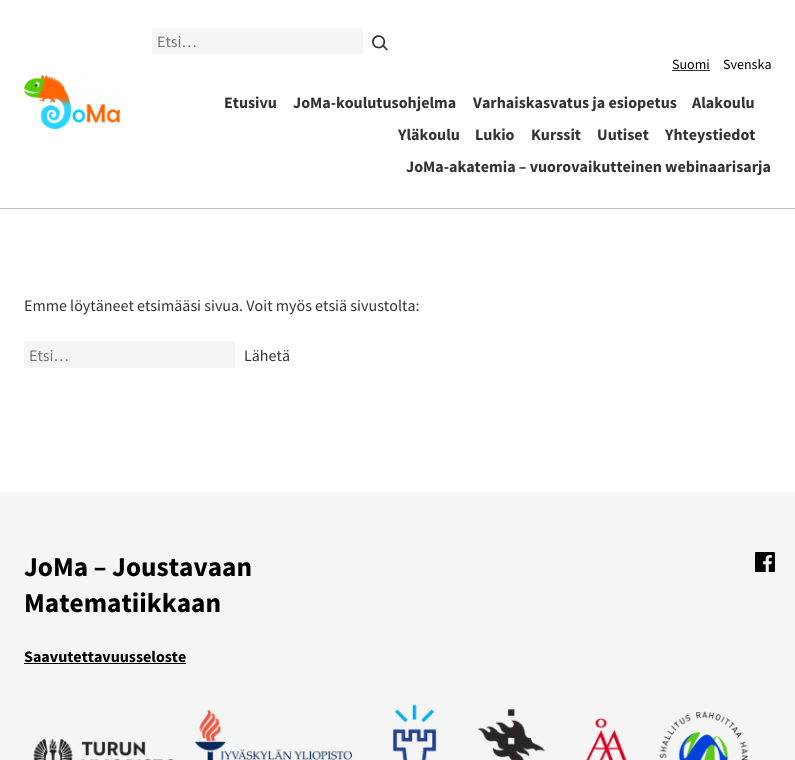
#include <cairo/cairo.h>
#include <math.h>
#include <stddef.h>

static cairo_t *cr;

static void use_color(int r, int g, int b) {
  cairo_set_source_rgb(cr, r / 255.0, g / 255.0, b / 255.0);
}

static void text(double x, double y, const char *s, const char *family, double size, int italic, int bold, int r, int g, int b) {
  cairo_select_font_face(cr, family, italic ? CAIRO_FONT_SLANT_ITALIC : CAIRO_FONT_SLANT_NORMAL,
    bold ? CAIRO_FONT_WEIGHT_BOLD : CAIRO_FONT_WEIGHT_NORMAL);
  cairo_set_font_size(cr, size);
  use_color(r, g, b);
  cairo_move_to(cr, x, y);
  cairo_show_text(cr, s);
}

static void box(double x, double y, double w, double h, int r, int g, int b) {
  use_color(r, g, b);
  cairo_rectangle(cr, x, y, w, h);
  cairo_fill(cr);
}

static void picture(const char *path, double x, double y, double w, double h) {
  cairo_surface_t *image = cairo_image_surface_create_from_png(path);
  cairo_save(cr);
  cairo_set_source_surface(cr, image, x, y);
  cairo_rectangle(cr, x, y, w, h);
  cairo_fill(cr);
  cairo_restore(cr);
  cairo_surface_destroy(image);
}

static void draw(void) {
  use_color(255, 255, 255);
  cairo_paint(cr);
  box(0, 208, 795, 1, 191, 191, 191);
  picture("img_01.png", 24, 75, 96, 54);
  box(152, 28, 211, 26, 245, 245, 245);
  picture("img_02.png", 372, 35, 16, 16);
  box(672, 70, 38, 1, 51, 51, 51);
  box(24, 341, 211, 27, 245, 245, 245);
  box(0, 492, 795, 268, 245, 245, 245);
  picture("img_03.png", 755, 552, 20, 20);
  box(24, 663, 162, 1, 0, 0, 0);
  picture("img_04.png", 33, 704, 716, 56);
  text(157, 47, "Etsi…", "Source Sans Pro", 16, 0, 0, 117, 117, 117);
  text(672, 69, "Suomi", "Source Sans Pro", 14, 0, 0, 0, 0, 0);
  text(723, 69, "Svenska", "Source Sans Pro", 14, 0, 0, 0, 0, 0);
  text(224, 108, "Etusivu", "Source Sans Pro", 16, 0, 1, 51, 51, 51);
  text(293, 108, "JoMa-koulutusohjelma", "Source Sans Pro", 16, 0, 1, 51, 51, 51);
  text(473, 108, "Varhaiskasvatus ja esiopetus", "Source Sans Pro", 16, 0, 1, 51, 51, 51);
  text(692, 108, "Alakoulu", "Source Sans Pro", 16, 0, 1, 51, 51, 51);
  text(398, 140, "Yläkoulu", "Source Sans Pro", 16, 0, 1, 51, 51, 51);
  text(475, 140, "Lukio", "Source Sans Pro", 16, 0, 1, 51, 51, 51);
  text(531, 140, "Kurssit", "Source Sans Pro", 16, 0, 1, 51, 51, 51);
  text(597, 140, "Uutiset", "Source Sans Pro", 16, 0, 1, 51, 51, 51);
  text(665, 140, "Yhteystiedot", "Source Sans Pro", 16, 0, 1, 51, 51, 51);
  text(406, 172, "JoMa-akatemia – vuorovaikutteinen webinaarisarja", "Source Sans Pro", 16, 0, 1, 51, 51, 51);
  text(24, 311, "Emme löytäneet etsimääsi sivua. Voit myös etsiä sivustolta:", "Source Sans Pro", 16, 0, 0, 51, 51, 51);
  text(29, 361, "Etsi…", "Source Sans Pro", 16, 0, 0, 117, 117, 117);
  text(244, 361, "Lähetä", "Source Sans Pro", 16, 0, 0, 51, 51, 51);
  text(24, 576, "JoMa – Joustavaan", "Source Sans Pro", 27.25, 0, 1, 0, 0, 0);
  text(24, 612, "Matematiikkaan", "Source Sans Pro", 27.25, 0, 1, 0, 0, 0);
  text(24, 662, "Saavutettavuusseloste", "Source Sans Pro", 16, 0, 1, 0, 0, 0);
}

int main(void) {
  cairo_surface_t *surface = cairo_image_surface_create(CAIRO_FORMAT_RGB24, 795, 760);
  cr = cairo_create(surface);
  cairo_font_options_t *options = cairo_font_options_create();
  cairo_font_options_set_hint_metrics(options, CAIRO_HINT_METRICS_OFF);
  cairo_font_options_set_hint_style(options, CAIRO_HINT_STYLE_NONE);
  cairo_set_font_options(cr, options);
  cairo_set_miter_limit(cr, 4);
  draw();
  cairo_surface_write_to_png(surface, "out.png");
  cairo_font_options_destroy(options);
  cairo_destroy(cr);
  cairo_surface_destroy(surface);
  return 0;
}
